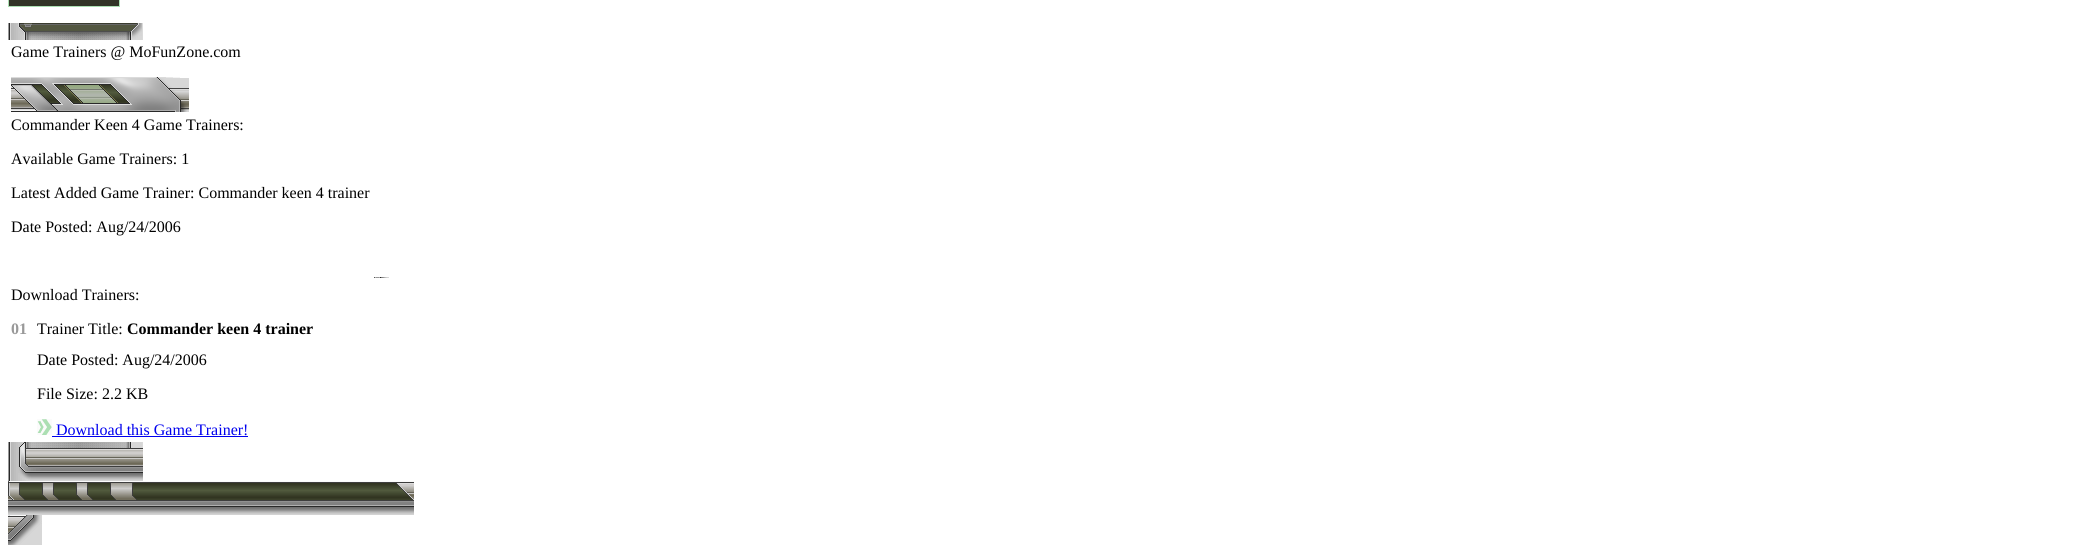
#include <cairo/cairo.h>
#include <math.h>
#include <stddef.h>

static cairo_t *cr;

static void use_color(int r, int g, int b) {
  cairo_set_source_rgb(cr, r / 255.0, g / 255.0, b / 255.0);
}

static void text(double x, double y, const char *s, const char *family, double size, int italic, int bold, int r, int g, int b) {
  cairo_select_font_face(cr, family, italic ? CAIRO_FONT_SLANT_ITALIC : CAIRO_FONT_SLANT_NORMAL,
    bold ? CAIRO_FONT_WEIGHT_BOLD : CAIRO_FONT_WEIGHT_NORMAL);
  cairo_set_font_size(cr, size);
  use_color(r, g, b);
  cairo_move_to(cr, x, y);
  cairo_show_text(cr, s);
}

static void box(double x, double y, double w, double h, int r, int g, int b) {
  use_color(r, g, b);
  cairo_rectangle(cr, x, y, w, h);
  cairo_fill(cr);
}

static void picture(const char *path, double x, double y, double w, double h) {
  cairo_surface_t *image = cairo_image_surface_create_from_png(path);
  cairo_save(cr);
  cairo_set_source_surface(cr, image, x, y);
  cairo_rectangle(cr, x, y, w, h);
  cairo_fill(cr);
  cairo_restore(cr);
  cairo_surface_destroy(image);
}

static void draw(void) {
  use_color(255, 255, 255);
  cairo_paint(cr);
  cairo_rectangle(cr, 8.5, -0.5, 111, 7);
  use_color(172, 223, 179);
  cairo_set_line_width(cr, 1);
  cairo_stroke(cr);
  box(9, 0, 110, 6, 49, 51, 38);
  picture("img_01.png", 8, 23, 135, 17);
  picture("img_02.png", 11, 77, 178, 35);
  picture("img_03.png", 37, 419, 15, 16);
  box(52, 436, 196, 1, 0, 0, 238);
  picture("img_04.png", 374, 277, 15, 1);
  picture("img_05.png", 8, 442, 135, 39);
  picture("img_06.png", 8, 481, 406, 34);
  picture("img_07.png", 8, 515, 34, 30);
  text(11, 57, "Game Trainers @ MoFunZone.com", "Liberation Serif", 16, 0, 0, 0, 0, 0);
  text(11, 130, "Commander Keen 4 Game Trainers:", "Liberation Serif", 16, 0, 0, 0, 0, 0);
  text(11, 164, "Available Game Trainers: 1", "Liberation Serif", 16, 0, 0, 0, 0, 0);
  text(11, 198, "Latest Added Game Trainer: Commander keen 4 trainer", "Liberation Serif", 16, 0, 0, 0, 0, 0);
  text(11, 232, "Date Posted: Aug/24/2006", "Liberation Serif", 16, 0, 0, 0, 0, 0);
  text(11, 300, "Download Trainers:", "Liberation Serif", 16, 0, 0, 0, 0, 0);
  text(11, 334, "01", "Liberation Serif", 16, 0, 1, 153, 153, 153);
  text(37, 334, "Trainer Title:", "Liberation Serif", 16, 0, 0, 0, 0, 0);
  text(127, 334, "Commander keen 4 trainer", "Liberation Serif", 16, 0, 1, 0, 0, 0);
  text(37, 365, "Date Posted: Aug/24/2006", "Liberation Serif", 16, 0, 0, 0, 0, 0);
  text(37, 399, "File Size: 2.2 KB", "Liberation Serif", 16, 0, 0, 0, 0, 0);
  text(56, 435, "Download this Game Trainer!", "Liberation Serif", 16, 0, 0, 0, 0, 238);
}

int main(void) {
  cairo_surface_t *surface = cairo_image_surface_create(CAIRO_FORMAT_RGB24, 2075, 545);
  cr = cairo_create(surface);
  cairo_font_options_t *options = cairo_font_options_create();
  cairo_font_options_set_hint_metrics(options, CAIRO_HINT_METRICS_OFF);
  cairo_font_options_set_hint_style(options, CAIRO_HINT_STYLE_NONE);
  cairo_set_font_options(cr, options);
  cairo_set_miter_limit(cr, 4);
  draw();
  cairo_surface_write_to_png(surface, "out.png");
  cairo_font_options_destroy(options);
  cairo_destroy(cr);
  cairo_surface_destroy(surface);
  return 0;
}
